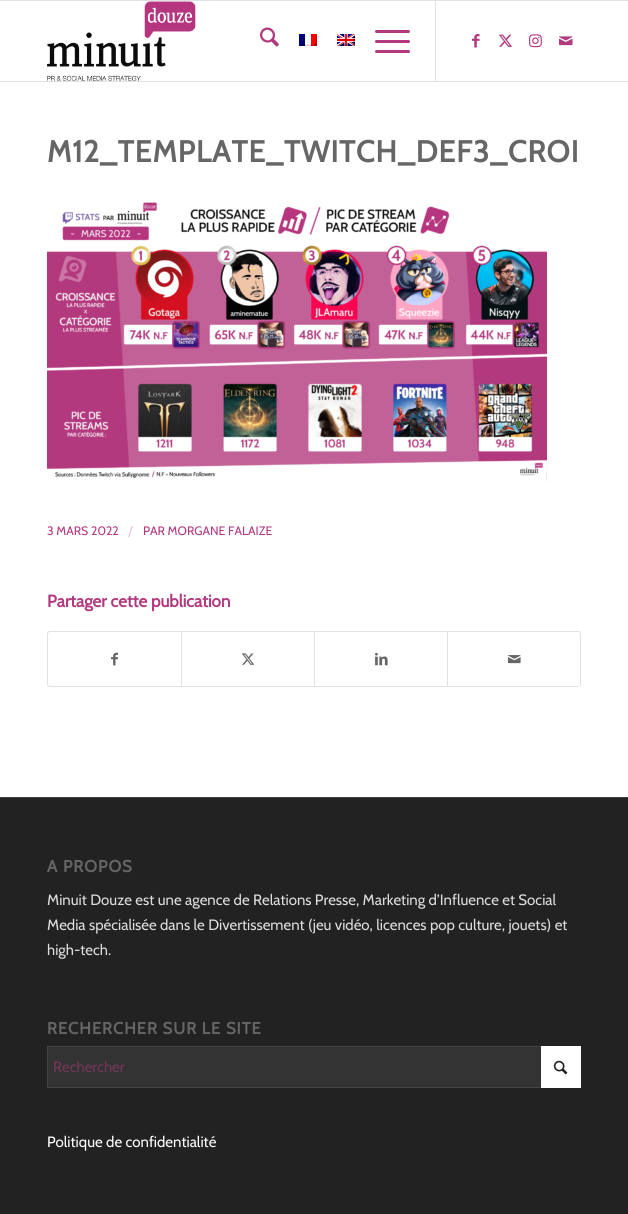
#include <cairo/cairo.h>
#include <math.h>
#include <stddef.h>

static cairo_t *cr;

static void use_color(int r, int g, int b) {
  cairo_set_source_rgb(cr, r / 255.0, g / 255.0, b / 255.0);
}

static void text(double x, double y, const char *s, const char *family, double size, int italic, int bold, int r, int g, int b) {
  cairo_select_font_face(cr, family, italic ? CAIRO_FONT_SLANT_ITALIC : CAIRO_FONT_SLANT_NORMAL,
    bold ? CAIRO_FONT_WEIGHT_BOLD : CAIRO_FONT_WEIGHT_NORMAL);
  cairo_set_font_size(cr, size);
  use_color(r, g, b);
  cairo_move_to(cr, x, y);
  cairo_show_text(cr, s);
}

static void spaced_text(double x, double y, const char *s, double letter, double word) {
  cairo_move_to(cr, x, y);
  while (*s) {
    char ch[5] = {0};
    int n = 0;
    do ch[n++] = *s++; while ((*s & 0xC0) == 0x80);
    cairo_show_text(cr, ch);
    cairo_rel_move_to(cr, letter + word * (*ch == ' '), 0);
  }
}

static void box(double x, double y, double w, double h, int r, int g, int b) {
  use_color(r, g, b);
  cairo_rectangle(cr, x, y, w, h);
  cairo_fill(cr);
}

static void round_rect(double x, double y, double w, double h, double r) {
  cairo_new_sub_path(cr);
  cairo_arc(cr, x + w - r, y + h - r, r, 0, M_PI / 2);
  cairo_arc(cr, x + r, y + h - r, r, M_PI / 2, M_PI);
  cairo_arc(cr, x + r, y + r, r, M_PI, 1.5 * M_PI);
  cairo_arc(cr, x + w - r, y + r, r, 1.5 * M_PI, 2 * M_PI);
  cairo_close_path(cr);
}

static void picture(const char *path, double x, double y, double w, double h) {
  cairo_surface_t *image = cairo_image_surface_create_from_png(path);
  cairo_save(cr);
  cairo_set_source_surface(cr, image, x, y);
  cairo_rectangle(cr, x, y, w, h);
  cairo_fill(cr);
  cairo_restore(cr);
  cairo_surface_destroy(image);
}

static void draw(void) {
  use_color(255, 255, 255);
  cairo_paint(cr);
  box(0, 0, 628, 1, 225, 225, 225);
  box(0, 81, 628, 1, 225, 225, 225);
  picture("img_01.png", 47, 1, 149, 80);
  box(435, 1, 1, 80, 225, 225, 225);
  picture("img_02.png", 260, 27, 19, 20);
  picture("img_03.png", 299, 34, 18, 12);
  picture("img_04.png", 337, 34, 18, 12);
  use_color(179, 57, 126);
  round_rect(375, 40, 35, 3, 1.5);
  cairo_fill(cr);
  round_rect(375, 30, 35, 3, 1.5);
  cairo_fill(cr);
  round_rect(375, 50, 35, 3, 1.5);
  cairo_fill(cr);
  picture("img_05.png", 472, 34, 8, 14);
  picture("img_06.png", 498, 34, 15, 13);
  picture("img_07.png", 529, 34, 13, 14);
  picture("img_08.png", 559, 36, 14, 10);
  picture("img_09.png", 47, 202, 500, 279);
  round_rect(47.5, 631.5, 533, 55, 2.5);
  use_color(225, 225, 225);
  cairo_set_line_width(cr, 1);
  cairo_stroke(cr);
  picture("img_10.png", 111, 652, 7, 14);
  box(181, 632, 1, 54, 225, 225, 225);
  picture("img_11.png", 241, 653, 14, 12);
  box(314, 632, 1, 54, 225, 225, 225);
  picture("img_12.png", 375, 652, 13, 14);
  box(447, 632, 1, 54, 225, 225, 225);
  picture("img_13.png", 508, 655, 13, 9);
  box(0, 798, 628, 416, 34, 34, 34);
  box(0, 797, 628, 1, 68, 68, 68);
  box(48, 1047, 493, 40, 51, 51, 51);
  cairo_rectangle(cr, 47.5, 1046.5, 533, 41);
  use_color(68, 68, 68);
  cairo_stroke(cr);
  box(541, 1046, 40, 42, 255, 255, 255);
  picture("img_14.png", 553, 1060, 15, 15);
  cairo_select_font_face(cr, "Cabin", CAIRO_FONT_SLANT_NORMAL, CAIRO_FONT_WEIGHT_BOLD);
  cairo_set_font_size(cr, 30);
  use_color(102, 102, 102);
  spaced_text(47, 162, "M12_TEMPLATE_TWITCH_DEF3_CROI", 1, 0);
  text(47, 535, "3 MARS 2022", "Cabin", 12.2, 0, 0, 179, 57, 126);
  text(128, 536, "/", "Cabin", 14, 0, 0, 232, 196, 216);
  text(143, 535, "PAR MORGANE FALAIZE", "Cabin", 12.2, 0, 0, 179, 57, 126);
  text(47, 607, "Partager cette publication", "Cabin", 17, 0, 1, 179, 57, 126);
  cairo_set_font_size(cr, 16.5);
  use_color(102, 102, 102);
  spaced_text(47, 872, "A PROPOS", 1, 0);
  text(47, 905, "Minuit Douze est une agence de Relations Presse, Marketing d’Influence et Social", "Cabin", 15, 0, 0, 221, 221, 221);
  text(47, 930, "Media spécialisée dans le Divertissement (jeu vidéo, licences pop culture, jouets) et", "Cabin", 15, 0, 0, 221, 221, 221);
  text(47, 955, "high-tech.", "Cabin", 15, 0, 0, 221, 221, 221);
  cairo_select_font_face(cr, "Cabin", CAIRO_FONT_SLANT_NORMAL, CAIRO_FONT_WEIGHT_BOLD);
  cairo_set_font_size(cr, 16.5);
  use_color(102, 102, 102);
  spaced_text(47, 1034, "RECHERCHER SUR LE SITE", 1, 0);
  text(53, 1072, "Rechercher", "Cabin", 15, 0, 0, 115, 54, 89);
  text(47, 1147, "Politique de confidentialité", "Cabin", 15, 0, 0, 255, 255, 255);
}

int main(void) {
  cairo_surface_t *surface = cairo_image_surface_create(CAIRO_FORMAT_RGB24, 628, 1214);
  cr = cairo_create(surface);
  cairo_font_options_t *options = cairo_font_options_create();
  cairo_font_options_set_hint_metrics(options, CAIRO_HINT_METRICS_OFF);
  cairo_font_options_set_hint_style(options, CAIRO_HINT_STYLE_NONE);
  cairo_set_font_options(cr, options);
  cairo_set_miter_limit(cr, 4);
  draw();
  cairo_surface_write_to_png(surface, "out.png");
  cairo_font_options_destroy(options);
  cairo_destroy(cr);
  cairo_surface_destroy(surface);
  return 0;
}
